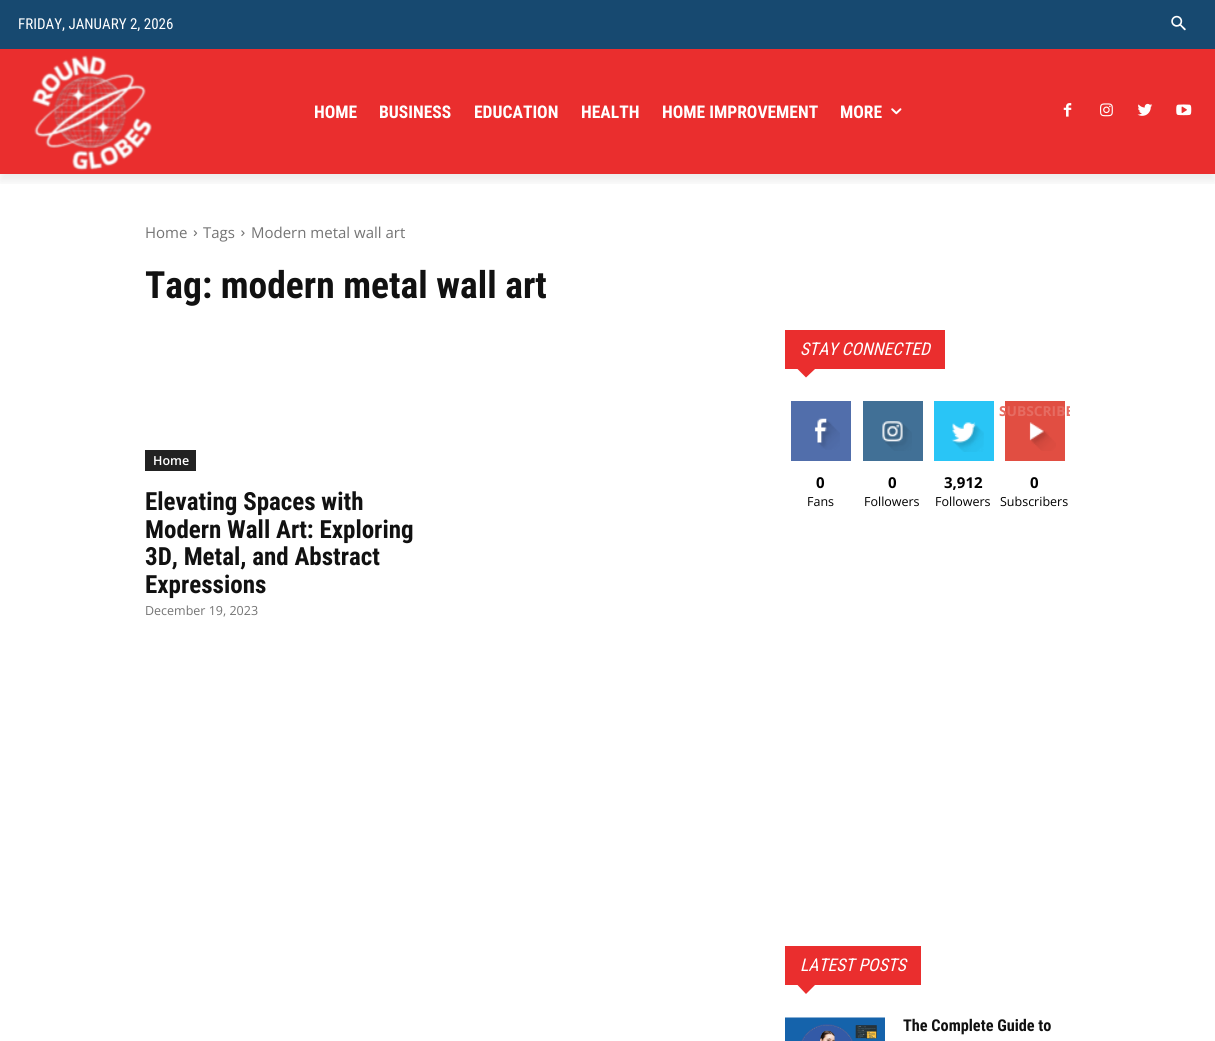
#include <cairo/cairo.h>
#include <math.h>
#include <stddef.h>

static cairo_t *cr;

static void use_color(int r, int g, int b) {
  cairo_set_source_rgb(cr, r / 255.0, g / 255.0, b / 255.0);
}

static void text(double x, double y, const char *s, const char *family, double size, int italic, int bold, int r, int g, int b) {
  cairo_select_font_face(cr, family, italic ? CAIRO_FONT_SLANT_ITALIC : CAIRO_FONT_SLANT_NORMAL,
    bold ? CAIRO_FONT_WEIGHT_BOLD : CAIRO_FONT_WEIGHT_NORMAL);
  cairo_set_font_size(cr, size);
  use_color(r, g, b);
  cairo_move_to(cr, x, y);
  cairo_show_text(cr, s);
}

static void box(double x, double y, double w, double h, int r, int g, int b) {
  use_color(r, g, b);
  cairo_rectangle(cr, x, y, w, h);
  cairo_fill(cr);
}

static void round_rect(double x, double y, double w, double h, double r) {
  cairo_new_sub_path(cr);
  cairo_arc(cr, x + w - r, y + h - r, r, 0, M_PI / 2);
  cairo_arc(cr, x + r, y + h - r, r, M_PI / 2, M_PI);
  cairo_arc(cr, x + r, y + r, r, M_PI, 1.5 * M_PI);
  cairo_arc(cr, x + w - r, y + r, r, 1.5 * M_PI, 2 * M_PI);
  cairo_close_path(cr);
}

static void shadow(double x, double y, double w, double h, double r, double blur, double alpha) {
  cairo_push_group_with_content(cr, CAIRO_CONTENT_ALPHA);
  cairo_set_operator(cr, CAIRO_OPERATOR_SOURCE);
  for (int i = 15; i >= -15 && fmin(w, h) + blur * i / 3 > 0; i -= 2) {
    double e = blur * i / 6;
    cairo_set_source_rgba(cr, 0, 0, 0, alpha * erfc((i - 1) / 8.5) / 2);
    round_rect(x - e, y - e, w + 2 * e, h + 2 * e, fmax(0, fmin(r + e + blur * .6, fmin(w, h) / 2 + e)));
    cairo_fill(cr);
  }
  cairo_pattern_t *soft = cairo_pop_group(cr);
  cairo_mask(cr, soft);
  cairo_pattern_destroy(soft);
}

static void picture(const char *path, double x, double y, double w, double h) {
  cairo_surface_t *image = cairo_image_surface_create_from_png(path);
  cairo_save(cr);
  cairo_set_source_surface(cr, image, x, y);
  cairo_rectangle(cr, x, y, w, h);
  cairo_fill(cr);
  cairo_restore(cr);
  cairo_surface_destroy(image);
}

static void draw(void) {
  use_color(255, 255, 255);
  cairo_paint(cr);
  box(0, 0, 1215, 49, 23, 73, 112);
  picture("img_01.png", 1171, 15, 15, 16);
  box(0, 49, 1215, 125, 234, 46, 46);
  picture("img_02.png", 32, 55, 120, 116);
  picture("img_04.png", 1063, 103, 9, 14);
  picture("img_05.png", 1100, 103, 13, 14);
  picture("img_06.png", 1137, 103, 16, 13);
  picture("img_07.png", 1176, 104, 16, 12);
  cairo_save(cr);
  cairo_rectangle(cr, 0, 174, 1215, 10);
  cairo_clip(cr);
  use_color(0, 0, 0);
  shadow(0, 56, 1215, 125, 0, 5, 0.08);
  cairo_restore(cr);
  picture("img_03.png", 891, 108, 11, 7);
  picture("img_08.png", 193, 230, 5, 7);
  picture("img_09.png", 241, 230, 4, 7);
  box(145, 450, 51, 21, 34, 34, 34);
  box(785, 330, 160, 39, 234, 46, 46);
  cairo_new_path(cr);
  cairo_move_to(cr, 797.5, 369);
  cairo_line_to(cr, 815, 369);
  cairo_line_to(cr, 806, 377.5);
  cairo_close_path(cr);
  cairo_fill(cr);
  box(791, 401, 60, 60, 81, 110, 171);
  picture("img_10.png", 814, 418, 26, 32);
  box(863, 401, 60, 60, 65, 112, 150);
  picture("img_11.png", 882, 421, 30, 30);
  box(934, 401, 60, 60, 41, 197, 246);
  picture("img_12.png", 951, 422, 33, 30);
  box(1005, 401, 60, 60, 225, 78, 66);
  picture("img_13.png", 1029, 422, 27, 29);
  box(785, 946, 136, 39, 234, 46, 46);
  cairo_new_path(cr);
  cairo_move_to(cr, 797.5, 985);
  cairo_line_to(cr, 815, 985);
  cairo_line_to(cr, 806, 994);
  cairo_close_path(cr);
  cairo_fill(cr);
  picture("img_14.png", 785, 1017, 100, 24);
  text(18, 29, "FRIDAY, JANUARY 2, 2026", "Roboto Condensed", 15, 0, 0, 255, 255, 255);
  text(314, 118, "HOME", "Roboto Condensed", 17.5, 0, 1, 255, 255, 255);
  text(379, 118, "BUSINESS", "Roboto Condensed", 17.5, 0, 1, 255, 255, 255);
  text(474, 118, "EDUCATION", "Roboto Condensed", 17.5, 0, 1, 255, 255, 255);
  text(581, 118, "HEALTH", "Roboto Condensed", 17.5, 0, 1, 255, 255, 255);
  text(662, 118, "HOME IMPROVEMENT", "Roboto Condensed", 17.5, 0, 1, 255, 255, 255);
  text(840, 118, "MORE", "Roboto Condensed", 17.5, 0, 1, 255, 255, 255);
  text(145, 238, "Home", "Open Sans", 15, 0, 0, 116, 116, 116);
  text(203, 238, "Tags", "Open Sans", 15, 0, 0, 116, 116, 116);
  text(251, 238, "Modern metal wall art", "Open Sans", 15, 0, 0, 116, 116, 116);
  text(145, 298, "Tag: modern metal wall art", "Roboto Condensed", 37.5, 0, 1, 17, 17, 17);
  text(153, 465, "Home", "Open Sans SemiBold", 12.5, 0, 0, 255, 255, 255);
  text(145, 510, "Elevating Spaces with", "Roboto Condensed", 25, 0, 1, 17, 17, 17);
  text(145, 538, "Modern Wall Art: Exploring", "Roboto Condensed", 25, 0, 1, 17, 17, 17);
  text(145, 565, "3D, Metal, and Abstract", "Roboto Condensed", 25, 0, 1, 17, 17, 17);
  text(145, 593, "Expressions", "Roboto Condensed", 25, 0, 1, 17, 17, 17);
  text(145, 615, "December 19, 2023", "Open Sans", 12.5, 0, 0, 116, 116, 116);
  text(800, 355, "STAY CONNECTED", "Roboto Condensed", 17.5, 1, 0, 255, 255, 255);
  text(816, 488, "0", "Open Sans", 15, 0, 1, 0, 0, 0);
  text(807, 506, "Fans", "Open Sans", 12.5, 0, 0, 0, 0, 0);
  text(888, 488, "0", "Open Sans", 15, 0, 1, 0, 0, 0);
  text(864, 506, "Followers", "Open Sans", 12.5, 0, 0, 0, 0, 0);
  text(944, 488, "3,912", "Open Sans", 15, 0, 1, 0, 0, 0);
  text(935, 506, "Followers", "Open Sans", 12.5, 0, 0, 0, 0, 0);
  cairo_save(cr);
  cairo_rectangle(cr, 999, 401, 71, 113);
  cairo_clip(cr);
  text(999, 416, "SUBSCRIBE", "Open Sans", 13.75, 0, 1, 230, 108, 98);
  cairo_restore(cr);
  text(1030, 488, "0", "Open Sans", 15, 0, 1, 0, 0, 0);
  text(1000, 506, "Subscribers", "Open Sans", 12.5, 0, 0, 0, 0, 0);
  text(800, 971, "LATEST POSTS", "Roboto Condensed", 17.5, 1, 0, 255, 255, 255);
  text(903, 1031, "The Complete Guide to", "Roboto Condensed", 16.25, 0, 1, 17, 17, 17);
}

int main(void) {
  cairo_surface_t *surface = cairo_image_surface_create(CAIRO_FORMAT_RGB24, 1215, 1041);
  cr = cairo_create(surface);
  cairo_font_options_t *options = cairo_font_options_create();
  cairo_font_options_set_hint_metrics(options, CAIRO_HINT_METRICS_OFF);
  cairo_font_options_set_hint_style(options, CAIRO_HINT_STYLE_NONE);
  cairo_set_font_options(cr, options);
  cairo_set_miter_limit(cr, 4);
  draw();
  cairo_surface_write_to_png(surface, "out.png");
  cairo_font_options_destroy(options);
  cairo_destroy(cr);
  cairo_surface_destroy(surface);
  return 0;
}
